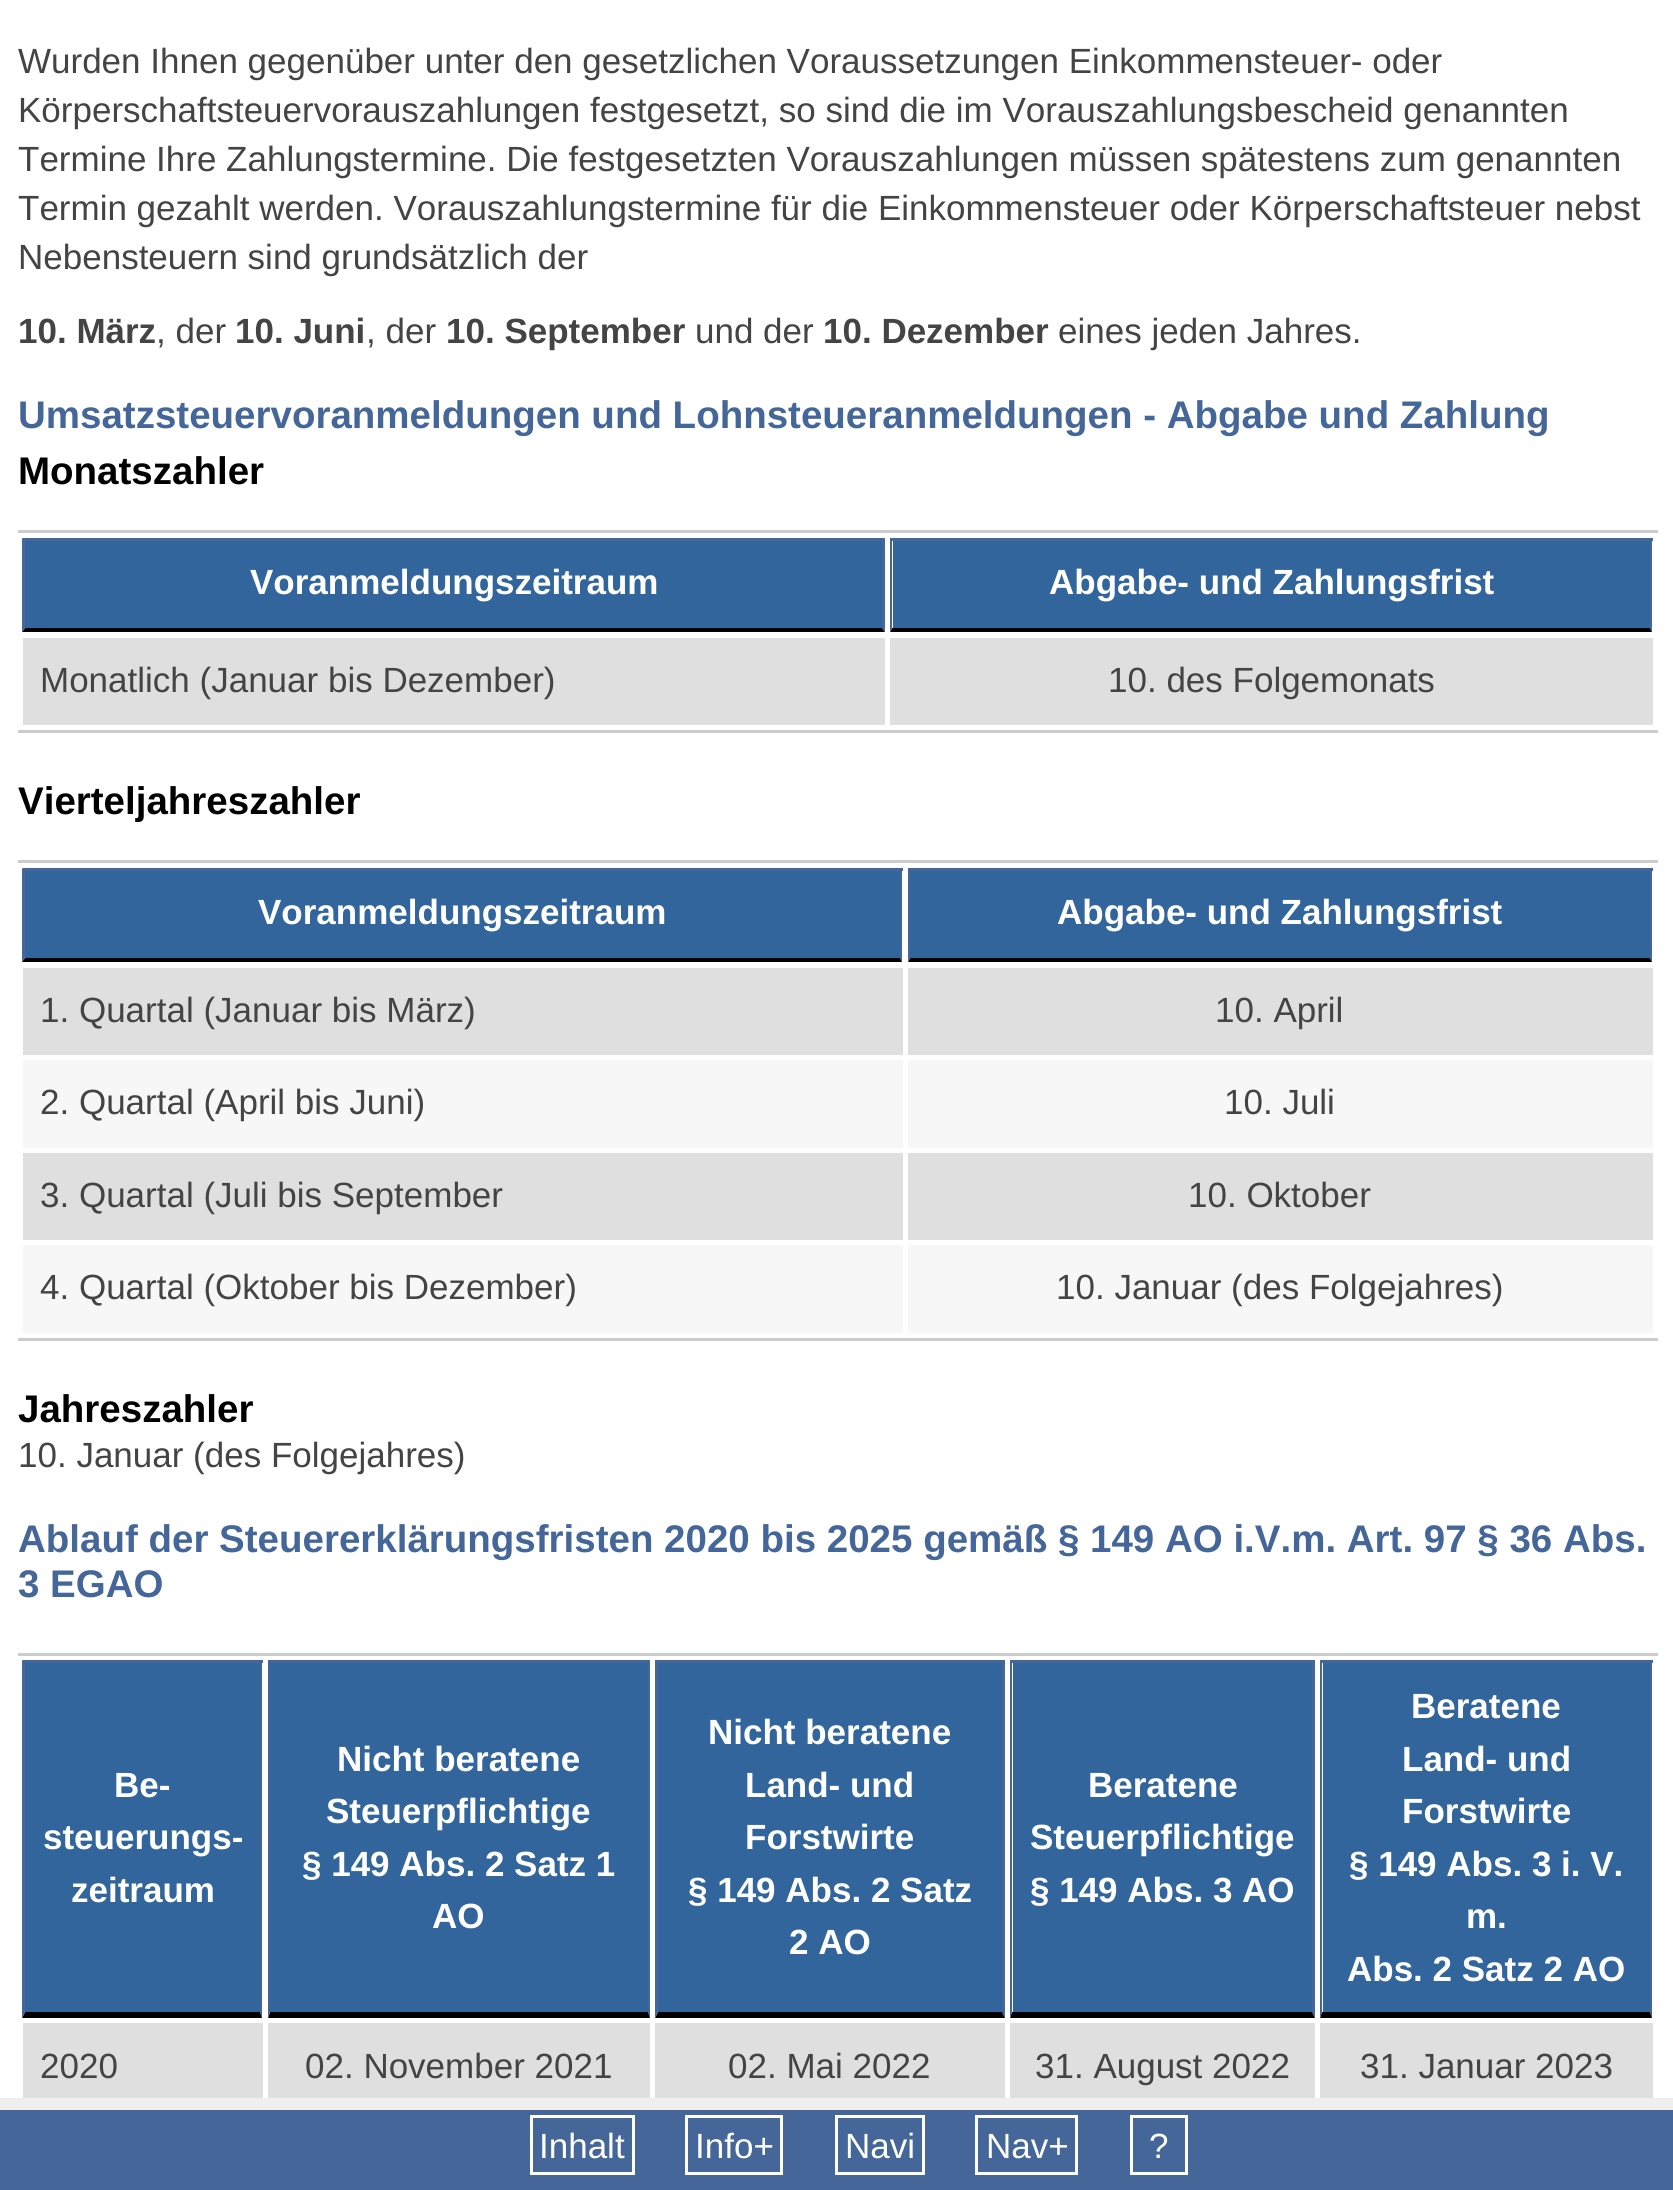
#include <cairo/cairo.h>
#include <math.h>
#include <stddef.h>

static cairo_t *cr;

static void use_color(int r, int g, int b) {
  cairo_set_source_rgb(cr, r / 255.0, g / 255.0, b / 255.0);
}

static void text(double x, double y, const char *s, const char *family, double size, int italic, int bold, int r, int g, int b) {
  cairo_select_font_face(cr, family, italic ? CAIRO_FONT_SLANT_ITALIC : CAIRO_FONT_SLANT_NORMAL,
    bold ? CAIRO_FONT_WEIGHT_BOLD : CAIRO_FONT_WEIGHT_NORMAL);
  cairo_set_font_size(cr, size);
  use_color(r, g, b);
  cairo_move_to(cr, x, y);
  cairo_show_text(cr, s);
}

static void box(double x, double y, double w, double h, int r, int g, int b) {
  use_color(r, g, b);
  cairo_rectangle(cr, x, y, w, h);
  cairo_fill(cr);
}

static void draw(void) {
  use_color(255, 255, 255);
  cairo_paint(cr);
  box(18, 530, 1640, 3, 204, 204, 204);
  box(18, 730, 1640, 3, 204, 204, 204);
  box(25, 541, 857, 87, 49, 101, 156);
  box(23, 538, 862, 3, 68, 102, 153);
  cairo_new_path(cr);
  cairo_move_to(cr, 885, 538);
  cairo_line_to(cr, 885, 632);
  cairo_line_to(cr, 882, 628);
  cairo_line_to(cr, 882, 540);
  cairo_close_path(cr);
  cairo_fill(cr);
  use_color(0, 0, 0);
  cairo_new_path(cr);
  cairo_move_to(cr, 885, 632);
  cairo_line_to(cr, 22, 632);
  cairo_line_to(cr, 25, 628);
  cairo_line_to(cr, 882, 628);
  cairo_close_path(cr);
  cairo_fill(cr);
  use_color(68, 102, 153);
  cairo_new_path(cr);
  cairo_move_to(cr, 22, 632);
  cairo_line_to(cr, 22, 538);
  cairo_line_to(cr, 25, 540);
  cairo_line_to(cr, 25, 628);
  cairo_close_path(cr);
  cairo_fill(cr);
  box(893, 541, 757, 87, 49, 101, 156);
  box(890, 538, 763, 3, 68, 102, 153);
  cairo_new_path(cr);
  cairo_move_to(cr, 1652, 538);
  cairo_line_to(cr, 1652, 632);
  cairo_line_to(cr, 1650, 628);
  cairo_line_to(cr, 1650, 540);
  cairo_close_path(cr);
  cairo_fill(cr);
  use_color(0, 0, 0);
  cairo_new_path(cr);
  cairo_move_to(cr, 1652, 632);
  cairo_line_to(cr, 890, 632);
  cairo_line_to(cr, 892, 628);
  cairo_line_to(cr, 1650, 628);
  cairo_close_path(cr);
  cairo_fill(cr);
  use_color(68, 102, 153);
  cairo_new_path(cr);
  cairo_move_to(cr, 890, 632);
  cairo_line_to(cr, 890, 538);
  cairo_line_to(cr, 892, 540);
  cairo_line_to(cr, 892, 628);
  cairo_close_path(cr);
  cairo_fill(cr);
  box(23, 638, 862, 87, 223, 223, 223);
  box(890, 638, 763, 87, 223, 223, 223);
  box(18, 860, 1640, 3, 204, 204, 204);
  box(18, 1338, 1640, 3, 204, 204, 204);
  box(25, 871, 875, 87, 49, 101, 156);
  box(23, 868, 880, 3, 68, 102, 153);
  cairo_new_path(cr);
  cairo_move_to(cr, 902, 868);
  cairo_line_to(cr, 902, 962);
  cairo_line_to(cr, 900, 958);
  cairo_line_to(cr, 900, 870);
  cairo_close_path(cr);
  cairo_fill(cr);
  use_color(0, 0, 0);
  cairo_new_path(cr);
  cairo_move_to(cr, 902, 962);
  cairo_line_to(cr, 22, 962);
  cairo_line_to(cr, 25, 958);
  cairo_line_to(cr, 900, 958);
  cairo_close_path(cr);
  cairo_fill(cr);
  use_color(68, 102, 153);
  cairo_new_path(cr);
  cairo_move_to(cr, 22, 962);
  cairo_line_to(cr, 22, 868);
  cairo_line_to(cr, 25, 870);
  cairo_line_to(cr, 25, 958);
  cairo_close_path(cr);
  cairo_fill(cr);
  box(910, 871, 740, 87, 49, 101, 156);
  box(908, 868, 745, 3, 68, 102, 153);
  cairo_new_path(cr);
  cairo_move_to(cr, 1652, 868);
  cairo_line_to(cr, 1652, 962);
  cairo_line_to(cr, 1650, 958);
  cairo_line_to(cr, 1650, 870);
  cairo_close_path(cr);
  cairo_fill(cr);
  use_color(0, 0, 0);
  cairo_new_path(cr);
  cairo_move_to(cr, 1652, 962);
  cairo_line_to(cr, 908, 962);
  cairo_line_to(cr, 910, 958);
  cairo_line_to(cr, 1650, 958);
  cairo_close_path(cr);
  cairo_fill(cr);
  use_color(68, 102, 153);
  cairo_new_path(cr);
  cairo_move_to(cr, 908, 962);
  cairo_line_to(cr, 908, 868);
  cairo_line_to(cr, 910, 870);
  cairo_line_to(cr, 910, 958);
  cairo_close_path(cr);
  cairo_fill(cr);
  box(23, 968, 880, 87, 223, 223, 223);
  box(908, 968, 745, 87, 223, 223, 223);
  box(23, 1060, 880, 88, 247, 247, 247);
  box(908, 1060, 745, 88, 247, 247, 247);
  box(23, 1153, 880, 87, 223, 223, 223);
  box(908, 1153, 745, 87, 223, 223, 223);
  box(23, 1245, 880, 88, 247, 247, 247);
  box(908, 1245, 745, 88, 247, 247, 247);
  box(18, 1653, 1640, 3, 204, 204, 204);
  box(25, 1663, 235, 349, 49, 101, 156);
  box(23, 1660, 240, 3, 68, 102, 153);
  cairo_new_path(cr);
  cairo_move_to(cr, 262, 1660);
  cairo_line_to(cr, 262, 2018);
  cairo_line_to(cr, 260, 2012);
  cairo_line_to(cr, 260, 1662);
  cairo_close_path(cr);
  cairo_fill(cr);
  use_color(0, 0, 0);
  cairo_new_path(cr);
  cairo_move_to(cr, 262, 2018);
  cairo_line_to(cr, 22, 2018);
  cairo_line_to(cr, 25, 2012);
  cairo_line_to(cr, 260, 2012);
  cairo_close_path(cr);
  cairo_fill(cr);
  use_color(68, 102, 153);
  cairo_new_path(cr);
  cairo_move_to(cr, 22, 2018);
  cairo_line_to(cr, 22, 1660);
  cairo_line_to(cr, 25, 1662);
  cairo_line_to(cr, 25, 2012);
  cairo_close_path(cr);
  cairo_fill(cr);
  box(270, 1663, 378, 349, 49, 101, 156);
  box(268, 1660, 382, 3, 68, 102, 153);
  cairo_new_path(cr);
  cairo_move_to(cr, 650, 1660);
  cairo_line_to(cr, 650, 2018);
  cairo_line_to(cr, 648, 2012);
  cairo_line_to(cr, 648, 1662);
  cairo_close_path(cr);
  cairo_fill(cr);
  use_color(0, 0, 0);
  cairo_new_path(cr);
  cairo_move_to(cr, 650, 2018);
  cairo_line_to(cr, 268, 2018);
  cairo_line_to(cr, 270, 2012);
  cairo_line_to(cr, 648, 2012);
  cairo_close_path(cr);
  cairo_fill(cr);
  use_color(68, 102, 153);
  cairo_new_path(cr);
  cairo_move_to(cr, 268, 2018);
  cairo_line_to(cr, 268, 1660);
  cairo_line_to(cr, 270, 1662);
  cairo_line_to(cr, 270, 2012);
  cairo_close_path(cr);
  cairo_fill(cr);
  box(658, 1663, 345, 350, 49, 101, 156);
  box(655, 1660, 350, 3, 68, 102, 153);
  cairo_new_path(cr);
  cairo_move_to(cr, 1005, 1660);
  cairo_line_to(cr, 1005, 2018);
  cairo_line_to(cr, 1002, 2012);
  cairo_line_to(cr, 1002, 1662);
  cairo_close_path(cr);
  cairo_fill(cr);
  use_color(0, 0, 0);
  cairo_new_path(cr);
  cairo_move_to(cr, 1005, 2018);
  cairo_line_to(cr, 655, 2018);
  cairo_line_to(cr, 658, 2012);
  cairo_line_to(cr, 1002, 2012);
  cairo_close_path(cr);
  cairo_fill(cr);
  use_color(68, 102, 153);
  cairo_new_path(cr);
  cairo_move_to(cr, 655, 2018);
  cairo_line_to(cr, 655, 1660);
  cairo_line_to(cr, 658, 1662);
  cairo_line_to(cr, 658, 2012);
  cairo_close_path(cr);
  cairo_fill(cr);
  box(1013, 1663, 300, 350, 49, 101, 156);
  box(1010, 1660, 305, 3, 68, 102, 153);
  cairo_new_path(cr);
  cairo_move_to(cr, 1315, 1660);
  cairo_line_to(cr, 1315, 2018);
  cairo_line_to(cr, 1312, 2012);
  cairo_line_to(cr, 1312, 1662);
  cairo_close_path(cr);
  cairo_fill(cr);
  use_color(0, 0, 0);
  cairo_new_path(cr);
  cairo_move_to(cr, 1315, 2018);
  cairo_line_to(cr, 1010, 2018);
  cairo_line_to(cr, 1012, 2012);
  cairo_line_to(cr, 1312, 2012);
  cairo_close_path(cr);
  cairo_fill(cr);
  use_color(68, 102, 153);
  cairo_new_path(cr);
  cairo_move_to(cr, 1010, 2018);
  cairo_line_to(cr, 1010, 1660);
  cairo_line_to(cr, 1012, 1662);
  cairo_line_to(cr, 1012, 2012);
  cairo_close_path(cr);
  cairo_fill(cr);
  box(1323, 1663, 327, 349, 49, 101, 156);
  box(1320, 1660, 333, 3, 68, 102, 153);
  cairo_new_path(cr);
  cairo_move_to(cr, 1652, 1660);
  cairo_line_to(cr, 1652, 2018);
  cairo_line_to(cr, 1650, 2012);
  cairo_line_to(cr, 1650, 1662);
  cairo_close_path(cr);
  cairo_fill(cr);
  use_color(0, 0, 0);
  cairo_new_path(cr);
  cairo_move_to(cr, 1652, 2018);
  cairo_line_to(cr, 1320, 2018);
  cairo_line_to(cr, 1322, 2012);
  cairo_line_to(cr, 1650, 2012);
  cairo_close_path(cr);
  cairo_fill(cr);
  use_color(68, 102, 153);
  cairo_new_path(cr);
  cairo_move_to(cr, 1320, 2018);
  cairo_line_to(cr, 1320, 1660);
  cairo_line_to(cr, 1322, 1662);
  cairo_line_to(cr, 1322, 2012);
  cairo_close_path(cr);
  cairo_fill(cr);
  box(23, 2023, 240, 75, 223, 223, 223);
  box(268, 2023, 382, 75, 223, 223, 223);
  box(655, 2023, 350, 75, 223, 223, 223);
  box(1010, 2023, 305, 75, 223, 223, 223);
  box(1320, 2023, 333, 75, 223, 223, 223);
  box(0, 2110, 1673, 80, 68, 102, 153);
  box(0, 2098, 1673, 12, 239, 239, 239);
  cairo_rectangle(cr, 531.5, 2116.5, 102, 57);
  use_color(255, 255, 255);
  cairo_set_line_width(cr, 3);
  cairo_stroke(cr);
  cairo_rectangle(cr, 686.5, 2116.5, 95, 57);
  cairo_stroke(cr);
  cairo_rectangle(cr, 836.5, 2116.5, 87, 57);
  cairo_stroke(cr);
  cairo_rectangle(cr, 976.5, 2116.5, 100, 57);
  cairo_stroke(cr);
  cairo_rectangle(cr, 1131.5, 2116.5, 55, 57);
  cairo_stroke(cr);
  text(18, 73, "Wurden Ihnen gegenüber unter den gesetzlichen Voraussetzungen Einkommensteuer- oder", "Liberation Sans", 35, 0, 0, 68, 68, 68);
  text(18, 122, "Körperschaftsteuervorauszahlungen festgesetzt, so sind die im Vorauszahlungsbescheid genannten", "Liberation Sans", 35, 0, 0, 68, 68, 68);
  text(18, 171, "Termine Ihre Zahlungstermine. Die festgesetzten Vorauszahlungen müssen spätestens zum genannten", "Liberation Sans", 35, 0, 0, 68, 68, 68);
  text(18, 220, "Termin gezahlt werden. Vorauszahlungstermine für die Einkommensteuer oder Körperschaftsteuer nebst", "Liberation Sans", 35, 0, 0, 68, 68, 68);
  text(18, 269, "Nebensteuern sind grundsätzlich der", "Liberation Sans", 35, 0, 0, 68, 68, 68);
  text(18, 343, "10. März", "Liberation Sans", 35, 0, 1, 68, 68, 68);
  text(156, 343, ", der", "Liberation Sans", 35, 0, 0, 68, 68, 68);
  text(235, 343, "10. Juni", "Liberation Sans", 35, 0, 1, 68, 68, 68);
  text(366, 343, ", der", "Liberation Sans", 35, 0, 0, 68, 68, 68);
  text(446, 343, "10. September", "Liberation Sans", 35, 0, 1, 68, 68, 68);
  text(695, 343, "und der", "Liberation Sans", 35, 0, 0, 68, 68, 68);
  text(823, 343, "10. Dezember", "Liberation Sans", 35, 0, 1, 68, 68, 68);
  text(1058, 343, "eines jeden Jahres.", "Liberation Sans", 35, 0, 0, 68, 68, 68);
  text(18, 428, "Umsatzsteuervoranmeldungen und Lohnsteueranmeldungen - Abgabe und Zahlung", "Liberation Sans", 38.5, 0, 1, 68, 102, 153);
  text(18, 484, "Monatszahler", "Liberation Sans", 38.5, 0, 1, 0, 0, 0);
  text(250, 594, "Voranmeldungszeitraum", "Liberation Sans", 35, 0, 1, 255, 255, 255);
  text(1049, 594, "Abgabe- und Zahlungsfrist", "Liberation Sans", 35, 0, 1, 255, 255, 255);
  text(40, 692, "Monatlich (Januar bis Dezember)", "Liberation Sans", 35, 0, 0, 68, 68, 68);
  text(1108, 692, "10. des Folgemonats", "Liberation Sans", 35, 0, 0, 68, 68, 68);
  text(18, 814, "Vierteljahreszahler", "Liberation Sans", 38.5, 0, 1, 0, 0, 0);
  text(258, 924, "Voranmeldungszeitraum", "Liberation Sans", 35, 0, 1, 255, 255, 255);
  text(1057, 924, "Abgabe- und Zahlungsfrist", "Liberation Sans", 35, 0, 1, 255, 255, 255);
  text(40, 1022, "1. Quartal (Januar bis März)", "Liberation Sans", 35, 0, 0, 68, 68, 68);
  text(1215, 1022, "10. April", "Liberation Sans", 35, 0, 0, 68, 68, 68);
  text(40, 1114, "2. Quartal (April bis Juni)", "Liberation Sans", 35, 0, 0, 68, 68, 68);
  text(1224, 1114, "10. Juli", "Liberation Sans", 35, 0, 0, 68, 68, 68);
  text(40, 1207, "3. Quartal (Juli bis September", "Liberation Sans", 35, 0, 0, 68, 68, 68);
  text(1188, 1207, "10. Oktober", "Liberation Sans", 35, 0, 0, 68, 68, 68);
  text(40, 1299, "4. Quartal (Oktober bis Dezember)", "Liberation Sans", 35, 0, 0, 68, 68, 68);
  text(1056, 1299, "10. Januar (des Folgejahres)", "Liberation Sans", 35, 0, 0, 68, 68, 68);
  text(18, 1422, "Jahreszahler", "Liberation Sans", 38.5, 0, 1, 0, 0, 0);
  text(18, 1467, "10. Januar (des Folgejahres)", "Liberation Sans", 35, 0, 0, 68, 68, 68);
  text(18, 1552, "Ablauf der Steuererklärungsfristen 2020 bis 2025 gemäß § 149 AO i.V.m. Art. 97 § 36 Abs.", "Liberation Sans", 38.5, 0, 1, 68, 102, 153);
  text(18, 1597, "3 EGAO", "Liberation Sans", 38.5, 0, 1, 68, 102, 153);
  text(114, 1797, "Be-", "Liberation Sans", 35, 0, 1, 255, 255, 255);
  text(43, 1849, "steuerungs-", "Liberation Sans", 35, 0, 1, 255, 255, 255);
  text(71, 1902, "zeitraum", "Liberation Sans", 35, 0, 1, 255, 255, 255);
  text(337, 1771, "Nicht beratene", "Liberation Sans", 35, 0, 1, 255, 255, 255);
  text(326, 1823, "Steuerpflichtige", "Liberation Sans", 35, 0, 1, 255, 255, 255);
  text(302, 1876, "§ 149 Abs. 2 Satz 1", "Liberation Sans", 35, 0, 1, 255, 255, 255);
  text(432, 1928, "AO", "Liberation Sans", 35, 0, 1, 255, 255, 255);
  text(708, 1744, "Nicht beratene", "Liberation Sans", 35, 0, 1, 255, 255, 255);
  text(745, 1797, "Land- und", "Liberation Sans", 35, 0, 1, 255, 255, 255);
  text(745, 1849, "Forstwirte", "Liberation Sans", 35, 0, 1, 255, 255, 255);
  text(688, 1902, "§ 149 Abs. 2 Satz", "Liberation Sans", 35, 0, 1, 255, 255, 255);
  text(789, 1954, "2 AO", "Liberation Sans", 35, 0, 1, 255, 255, 255);
  text(1088, 1797, "Beratene", "Liberation Sans", 35, 0, 1, 255, 255, 255);
  text(1030, 1849, "Steuerpflichtige", "Liberation Sans", 35, 0, 1, 255, 255, 255);
  text(1030, 1902, "§ 149 Abs. 3 AO", "Liberation Sans", 35, 0, 1, 255, 255, 255);
  text(1411, 1718, "Beratene", "Liberation Sans", 35, 0, 1, 255, 255, 255);
  text(1402, 1771, "Land- und", "Liberation Sans", 35, 0, 1, 255, 255, 255);
  text(1402, 1823, "Forstwirte", "Liberation Sans", 35, 0, 1, 255, 255, 255);
  text(1349, 1876, "§ 149 Abs. 3 i. V.", "Liberation Sans", 35, 0, 1, 255, 255, 255);
  text(1466, 1928, "m.", "Liberation Sans", 35, 0, 1, 255, 255, 255);
  text(1347, 1981, "Abs. 2 Satz 2 AO", "Liberation Sans", 35, 0, 1, 255, 255, 255);
  text(40, 2078, "2020", "Liberation Sans", 35, 0, 0, 68, 68, 68);
  text(305, 2078, "02. November 2021", "Liberation Sans", 35, 0, 0, 68, 68, 68);
  text(728, 2078, "02. Mai 2022", "Liberation Sans", 35, 0, 0, 68, 68, 68);
  text(1035, 2078, "31. August 2022", "Liberation Sans", 35, 0, 0, 68, 68, 68);
  text(1360, 2078, "31. Januar 2023", "Liberation Sans", 35, 0, 0, 68, 68, 68);
  text(539, 2158, "Inhalt", "Liberation Sans", 35, 0, 0, 255, 255, 255);
  text(695, 2158, "Info+", "Liberation Sans", 35, 0, 0, 255, 255, 255);
  text(845, 2158, "Navi", "Liberation Sans", 35, 0, 0, 255, 255, 255);
  text(986, 2158, "Nav+", "Liberation Sans", 35, 0, 0, 255, 255, 255);
  text(1149, 2158, "?", "Liberation Sans", 35, 0, 0, 255, 255, 255);
}

int main(void) {
  cairo_surface_t *surface = cairo_image_surface_create(CAIRO_FORMAT_RGB24, 1673, 2190);
  cr = cairo_create(surface);
  cairo_font_options_t *options = cairo_font_options_create();
  cairo_font_options_set_hint_metrics(options, CAIRO_HINT_METRICS_OFF);
  cairo_font_options_set_hint_style(options, CAIRO_HINT_STYLE_NONE);
  cairo_set_font_options(cr, options);
  cairo_set_miter_limit(cr, 4);
  draw();
  cairo_surface_write_to_png(surface, "out.png");
  cairo_font_options_destroy(options);
  cairo_destroy(cr);
  cairo_surface_destroy(surface);
  return 0;
}
